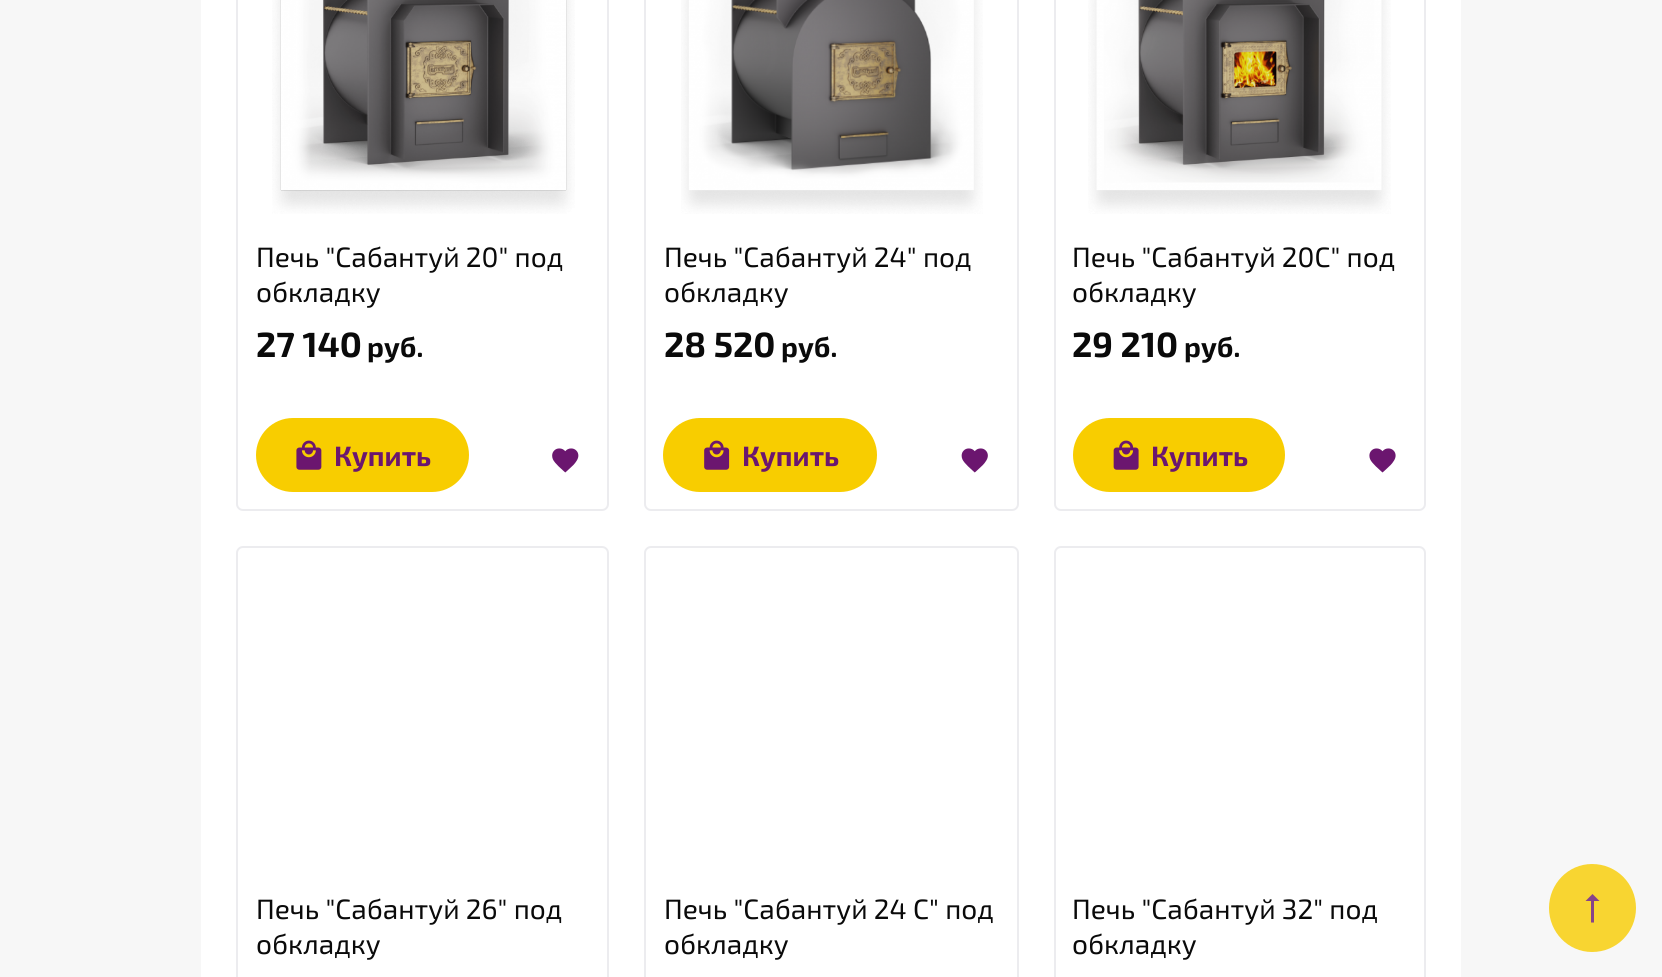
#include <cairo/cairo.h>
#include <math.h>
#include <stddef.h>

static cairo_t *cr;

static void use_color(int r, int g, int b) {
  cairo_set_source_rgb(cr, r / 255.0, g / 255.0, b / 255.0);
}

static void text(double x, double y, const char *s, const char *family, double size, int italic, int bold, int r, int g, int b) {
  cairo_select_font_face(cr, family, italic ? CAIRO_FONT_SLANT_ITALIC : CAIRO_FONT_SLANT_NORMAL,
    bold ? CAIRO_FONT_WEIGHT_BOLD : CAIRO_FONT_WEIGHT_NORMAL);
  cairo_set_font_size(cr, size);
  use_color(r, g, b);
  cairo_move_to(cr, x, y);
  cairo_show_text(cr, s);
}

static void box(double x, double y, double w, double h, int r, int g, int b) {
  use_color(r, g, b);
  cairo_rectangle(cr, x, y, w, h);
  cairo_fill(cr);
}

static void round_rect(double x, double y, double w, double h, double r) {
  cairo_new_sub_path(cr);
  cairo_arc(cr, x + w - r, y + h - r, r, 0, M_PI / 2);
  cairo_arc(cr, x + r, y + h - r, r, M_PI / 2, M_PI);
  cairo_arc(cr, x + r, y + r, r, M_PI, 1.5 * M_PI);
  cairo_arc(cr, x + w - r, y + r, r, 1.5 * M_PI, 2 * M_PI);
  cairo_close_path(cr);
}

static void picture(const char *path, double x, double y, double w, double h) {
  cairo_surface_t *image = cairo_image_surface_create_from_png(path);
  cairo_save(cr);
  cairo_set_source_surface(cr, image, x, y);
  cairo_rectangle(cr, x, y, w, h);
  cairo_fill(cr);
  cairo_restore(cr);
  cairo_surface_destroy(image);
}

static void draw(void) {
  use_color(247, 247, 247);
  cairo_paint(cr);
  box(201, 0, 1260, 977, 255, 255, 255);
  round_rect(237, -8, 371, 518, 6);
  use_color(236, 236, 239);
  cairo_stroke(cr);
  picture("img_01.png", 272, 0, 303, 214);
  use_color(248, 205, 0);
  round_rect(257, 419, 211, 72, 36);
  cairo_fill_preserve(cr);
  cairo_stroke(cr);
  picture("img_02.png", 296, 440, 26, 30);
  picture("img_03.png", 552, 448, 27, 25);
  round_rect(645, -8, 373, 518, 6);
  use_color(236, 236, 239);
  cairo_stroke(cr);
  picture("img_04.png", 681, 0, 302, 214);
  use_color(248, 205, 0);
  round_rect(664, 419, 212, 72, 36);
  cairo_fill_preserve(cr);
  cairo_stroke(cr);
  picture("img_05.png", 704, 440, 26, 30);
  picture("img_06.png", 961, 448, 27, 25);
  round_rect(1055, -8, 370, 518, 6);
  use_color(236, 236, 239);
  cairo_stroke(cr);
  picture("img_07.png", 1088, 0, 303, 214);
  use_color(248, 205, 0);
  round_rect(1074, 419, 210, 72, 36);
  cairo_fill_preserve(cr);
  cairo_stroke(cr);
  picture("img_08.png", 1113, 440, 26, 30);
  picture("img_09.png", 1369, 448, 27, 25);
  round_rect(237, 547, 371, 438, 6);
  use_color(236, 236, 239);
  cairo_stroke(cr);
  round_rect(645, 547, 373, 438, 6);
  cairo_stroke(cr);
  round_rect(1055, 547, 370, 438, 6);
  cairo_stroke(cr);
  use_color(248, 213, 49);
  cairo_new_path(cr);
  cairo_move_to(cr, 1549, 908);
  cairo_curve_to(cr, 1549, 884, 1568, 864, 1592, 864);
  cairo_curve_to(cr, 1617, 864, 1636, 884, 1636, 908);
  cairo_curve_to(cr, 1636, 932, 1617, 952, 1592, 952);
  cairo_curve_to(cr, 1568, 952, 1549, 932, 1549, 908);
  cairo_close_path(cr);
  cairo_fill(cr);
  use_color(135, 67, 138);
  cairo_new_path(cr);
  cairo_move_to(cr, 1591, 901);
  cairo_line_to(cr, 1585.5, 901);
  cairo_line_to(cr, 1592.5, 894);
  cairo_line_to(cr, 1599.5, 901);
  cairo_line_to(cr, 1594, 901);
  cairo_line_to(cr, 1594, 922.5);
  cairo_line_to(cr, 1591, 922.5);
  cairo_close_path(cr);
  cairo_fill(cr);
  text(256, 267, "Печь \"Сабантуй 20\" под", "Exo 2", 28, 0, 0, 10, 10, 10);
  text(256, 302, "обкладку", "Exo 2", 28, 0, 0, 10, 10, 10);
  text(256, 357, "27 140", "Exo 2", 35, 0, 1, 10, 10, 10);
  text(367, 357, "руб.", "Exo 2", 28, 0, 1, 10, 10, 10);
  text(334, 466, "Купить", "Exo 2", 28, 0, 1, 107, 22, 111);
  text(664, 267, "Печь \"Сабантуй 24\" под", "Exo 2", 28, 0, 0, 10, 10, 10);
  text(664, 302, "обкладку", "Exo 2", 28, 0, 0, 10, 10, 10);
  text(664, 357, "28 520", "Exo 2", 35, 0, 1, 10, 10, 10);
  text(781, 357, "руб.", "Exo 2", 28, 0, 1, 10, 10, 10);
  text(742, 466, "Купить", "Exo 2", 28, 0, 1, 107, 22, 111);
  text(1072, 267, "Печь \"Сабантуй 20С\" под", "Exo 2", 28, 0, 0, 10, 10, 10);
  text(1072, 302, "обкладку", "Exo 2", 28, 0, 0, 10, 10, 10);
  text(1072, 357, "29 210", "Exo 2", 35, 0, 1, 10, 10, 10);
  text(1184, 357, "руб.", "Exo 2", 28, 0, 1, 10, 10, 10);
  text(1151, 466, "Купить", "Exo 2", 28, 0, 1, 107, 22, 111);
  text(256, 919, "Печь \"Сабантуй 26\" под", "Exo 2", 28, 0, 0, 10, 10, 10);
  text(256, 954, "обкладку", "Exo 2", 28, 0, 0, 10, 10, 10);
  text(664, 919, "Печь \"Сабантуй 24 С\" под", "Exo 2", 28, 0, 0, 10, 10, 10);
  text(664, 954, "обкладку", "Exo 2", 28, 0, 0, 10, 10, 10);
  text(1072, 919, "Печь \"Сабантуй 32\" под", "Exo 2", 28, 0, 0, 10, 10, 10);
  text(1072, 954, "обкладку", "Exo 2", 28, 0, 0, 10, 10, 10);
}

int main(void) {
  cairo_surface_t *surface = cairo_image_surface_create(CAIRO_FORMAT_RGB24, 1662, 977);
  cr = cairo_create(surface);
  cairo_font_options_t *options = cairo_font_options_create();
  cairo_font_options_set_hint_metrics(options, CAIRO_HINT_METRICS_OFF);
  cairo_font_options_set_hint_style(options, CAIRO_HINT_STYLE_NONE);
  cairo_set_font_options(cr, options);
  cairo_set_miter_limit(cr, 4);
  draw();
  cairo_surface_write_to_png(surface, "out.png");
  cairo_font_options_destroy(options);
  cairo_destroy(cr);
  cairo_surface_destroy(surface);
  return 0;
}
